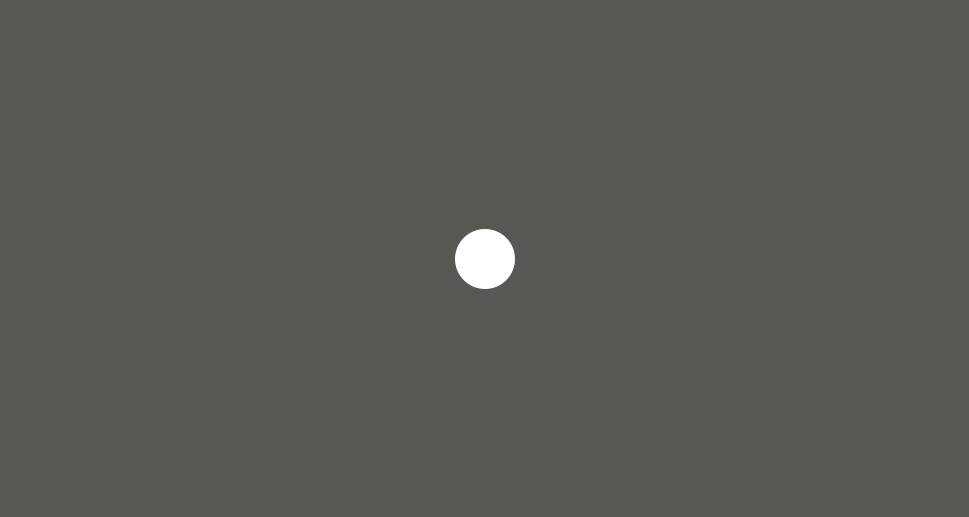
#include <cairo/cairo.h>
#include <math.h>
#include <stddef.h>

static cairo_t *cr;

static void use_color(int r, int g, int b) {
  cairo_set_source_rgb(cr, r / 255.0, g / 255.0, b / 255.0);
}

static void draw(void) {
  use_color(87, 87, 84);
  cairo_paint(cr);
  use_color(255, 255, 255);
  cairo_arc(cr, 485, 259, 30, 0, 2 * M_PI);
  cairo_fill(cr);
}

int main(void) {
  cairo_surface_t *surface = cairo_image_surface_create(CAIRO_FORMAT_RGB24, 969, 517);
  cr = cairo_create(surface);
  cairo_font_options_t *options = cairo_font_options_create();
  cairo_font_options_set_hint_metrics(options, CAIRO_HINT_METRICS_OFF);
  cairo_font_options_set_hint_style(options, CAIRO_HINT_STYLE_NONE);
  cairo_set_font_options(cr, options);
  cairo_set_miter_limit(cr, 4);
  draw();
  cairo_surface_write_to_png(surface, "out.png");
  cairo_font_options_destroy(options);
  cairo_destroy(cr);
  cairo_surface_destroy(surface);
  return 0;
}
